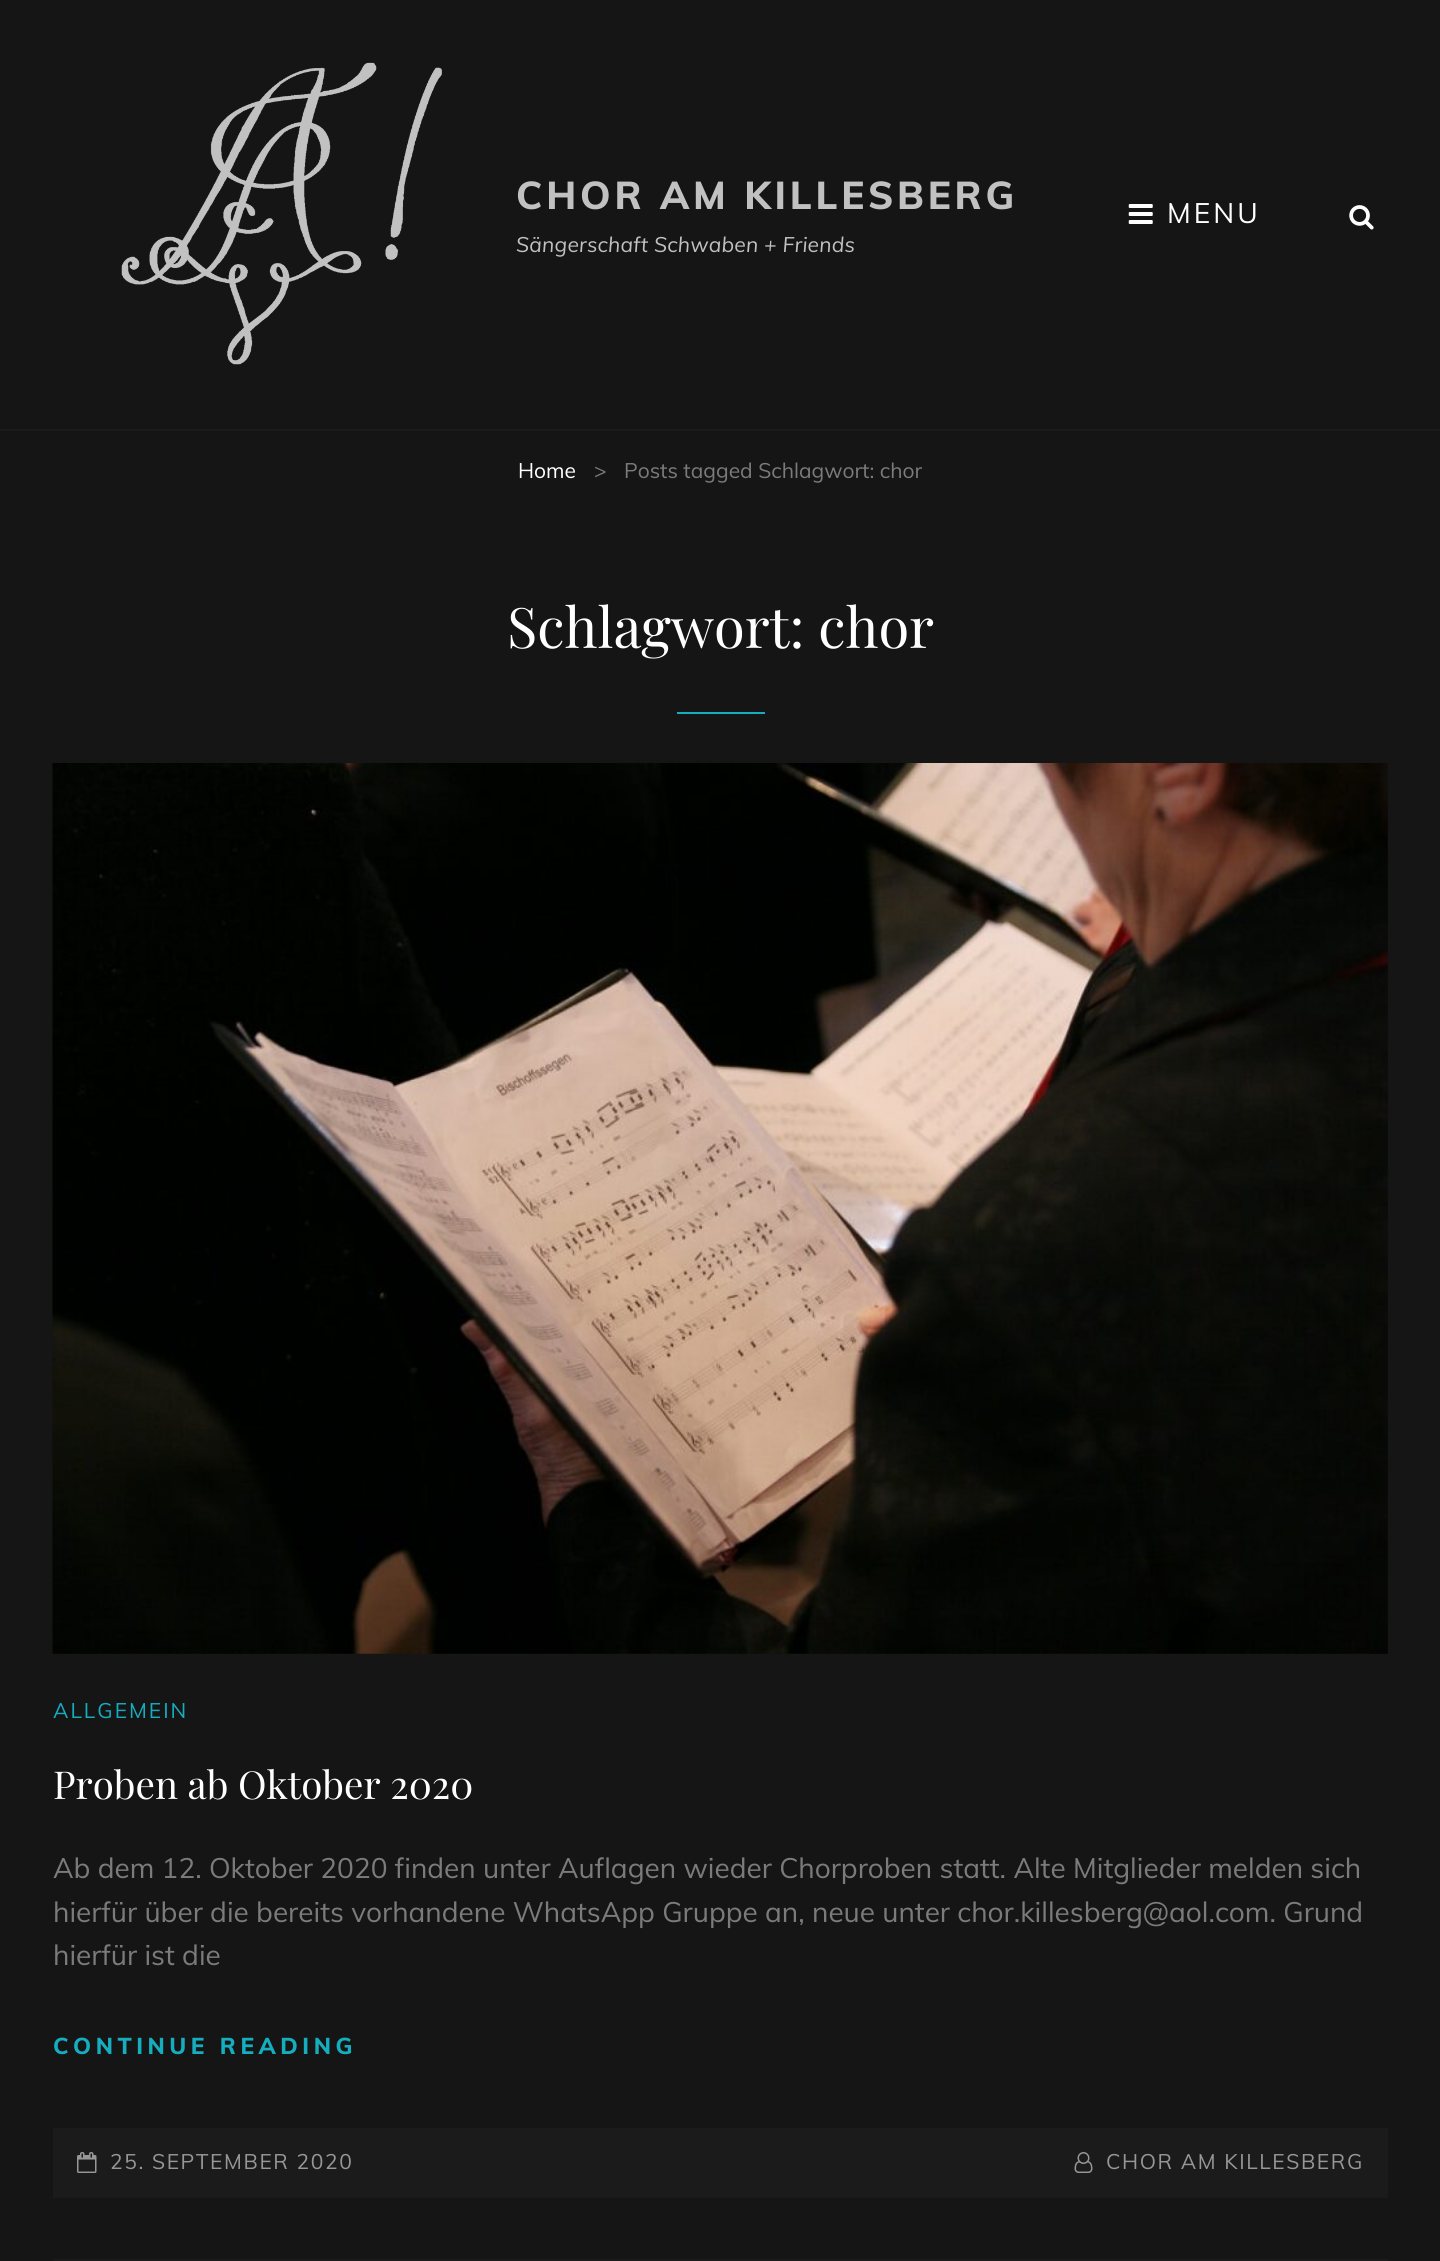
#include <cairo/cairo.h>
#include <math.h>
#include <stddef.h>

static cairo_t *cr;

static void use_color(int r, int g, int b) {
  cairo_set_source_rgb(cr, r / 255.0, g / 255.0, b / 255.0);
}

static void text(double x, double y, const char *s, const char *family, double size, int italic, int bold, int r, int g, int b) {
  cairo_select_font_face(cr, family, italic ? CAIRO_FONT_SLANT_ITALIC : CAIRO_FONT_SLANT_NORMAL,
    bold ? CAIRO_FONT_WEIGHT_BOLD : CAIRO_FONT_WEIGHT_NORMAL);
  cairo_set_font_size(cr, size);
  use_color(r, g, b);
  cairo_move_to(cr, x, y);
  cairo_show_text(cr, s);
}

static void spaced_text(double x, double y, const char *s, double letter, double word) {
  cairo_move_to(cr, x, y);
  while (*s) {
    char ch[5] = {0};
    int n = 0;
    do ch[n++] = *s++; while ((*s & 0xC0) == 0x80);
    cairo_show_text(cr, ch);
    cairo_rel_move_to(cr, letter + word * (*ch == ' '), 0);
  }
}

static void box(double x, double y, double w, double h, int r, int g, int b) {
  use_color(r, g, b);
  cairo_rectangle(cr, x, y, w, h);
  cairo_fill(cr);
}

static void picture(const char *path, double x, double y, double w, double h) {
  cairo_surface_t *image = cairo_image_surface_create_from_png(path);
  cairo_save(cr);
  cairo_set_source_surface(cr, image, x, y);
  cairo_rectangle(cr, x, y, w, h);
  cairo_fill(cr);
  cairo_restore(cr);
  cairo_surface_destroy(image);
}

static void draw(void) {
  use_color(21, 21, 21);
  cairo_paint(cr);
  box(0, 429, 1440, 2, 27, 27, 27);
  picture("img_01.png", 121, 62, 321, 303);
  picture("img_02.png", 1128, 204, 25, 20);
  picture("img_03.png", 1349, 205, 25, 25);
  box(677, 712, 88, 2, 21, 174, 191);
  picture("img_04.png", 52, 763, 1336, 891);
  box(53, 2128, 1335, 70, 27, 27, 27);
  picture("img_05.png", 77, 2152, 20, 21);
  picture("img_06.png", 1074, 2152, 19, 21);
  box(53, 2259, 1335, 2, 27, 27, 27);
  cairo_select_font_face(cr, "Muli ExtraBold", CAIRO_FONT_SLANT_NORMAL, CAIRO_FONT_WEIGHT_NORMAL);
  cairo_set_font_size(cr, 38.5);
  use_color(193, 193, 193);
  spaced_text(516, 209, "CHOR AM KILLESBERG", 3.8, 0);
  cairo_select_font_face(cr, "Muli", CAIRO_FONT_SLANT_ITALIC, CAIRO_FONT_WEIGHT_NORMAL);
  cairo_set_font_size(cr, 21);
  spaced_text(516, 252, "Sängerschaft Schwaben + Friends", 0.2, 0);
  cairo_select_font_face(cr, "Muli", CAIRO_FONT_SLANT_NORMAL, CAIRO_FONT_WEIGHT_NORMAL);
  cairo_set_font_size(cr, 28);
  use_color(255, 255, 255);
  spaced_text(1167, 223, "MENU", 3, 0);
  text(518, 478, "Home", "Muli", 21, 0, 0, 255, 255, 255);
  text(594, 478, ">", "Muli", 21, 0, 0, 123, 123, 123);
  text(624, 478, "Posts tagged Schlagwort: chor", "Muli", 21, 0, 0, 123, 123, 123);
  text(507, 648, "Schlagwort: chor", "Playfair Display", 56, 0, 0, 255, 255, 255);
  cairo_select_font_face(cr, "Muli", CAIRO_FONT_SLANT_NORMAL, CAIRO_FONT_WEIGHT_NORMAL);
  cairo_set_font_size(cr, 21);
  use_color(21, 174, 191);
  spaced_text(53, 1718, "ALLGEMEIN", 2, 0);
  text(53, 1799, "Proben ab Oktober 2020", "Playfair Display", 38.5, 0, 0, 255, 255, 255);
  text(53, 1878, "Ab dem 12. Oktober 2020 finden unter Auflagen wieder Chorproben statt. Alte Mitglieder melden sich", "Muli", 28, 0, 0, 123, 123, 123);
  text(53, 1922, "hierfür über die bereits vorhandene WhatsApp Gruppe an, neue unter chor.killesberg@aol.com. Grund", "Muli", 28, 0, 0, 123, 123, 123);
  text(53, 1965, "hierfür ist die", "Muli", 28, 0, 0, 123, 123, 123);
  cairo_select_font_face(cr, "Muli ExtraBold", CAIRO_FONT_SLANT_NORMAL, CAIRO_FONT_WEIGHT_NORMAL);
  cairo_set_font_size(cr, 22.75);
  use_color(21, 174, 191);
  spaced_text(53, 2054, "CONTINUE READING", 4.5, 0);
  cairo_select_font_face(cr, "Muli", CAIRO_FONT_SLANT_NORMAL, CAIRO_FONT_WEIGHT_NORMAL);
  cairo_set_font_size(cr, 21);
  use_color(151, 151, 151);
  spaced_text(110, 2169, "25. SEPTEMBER 2020", 1.6, 0);
  spaced_text(1106, 2169, "CHOR AM KILLESBERG", 1.6, 0);
}

int main(void) {
  cairo_surface_t *surface = cairo_image_surface_create(CAIRO_FORMAT_RGB24, 1440, 2261);
  cr = cairo_create(surface);
  cairo_font_options_t *options = cairo_font_options_create();
  cairo_font_options_set_hint_metrics(options, CAIRO_HINT_METRICS_OFF);
  cairo_font_options_set_hint_style(options, CAIRO_HINT_STYLE_NONE);
  cairo_set_font_options(cr, options);
  cairo_set_miter_limit(cr, 4);
  draw();
  cairo_surface_write_to_png(surface, "out.png");
  cairo_font_options_destroy(options);
  cairo_destroy(cr);
  cairo_surface_destroy(surface);
  return 0;
}
